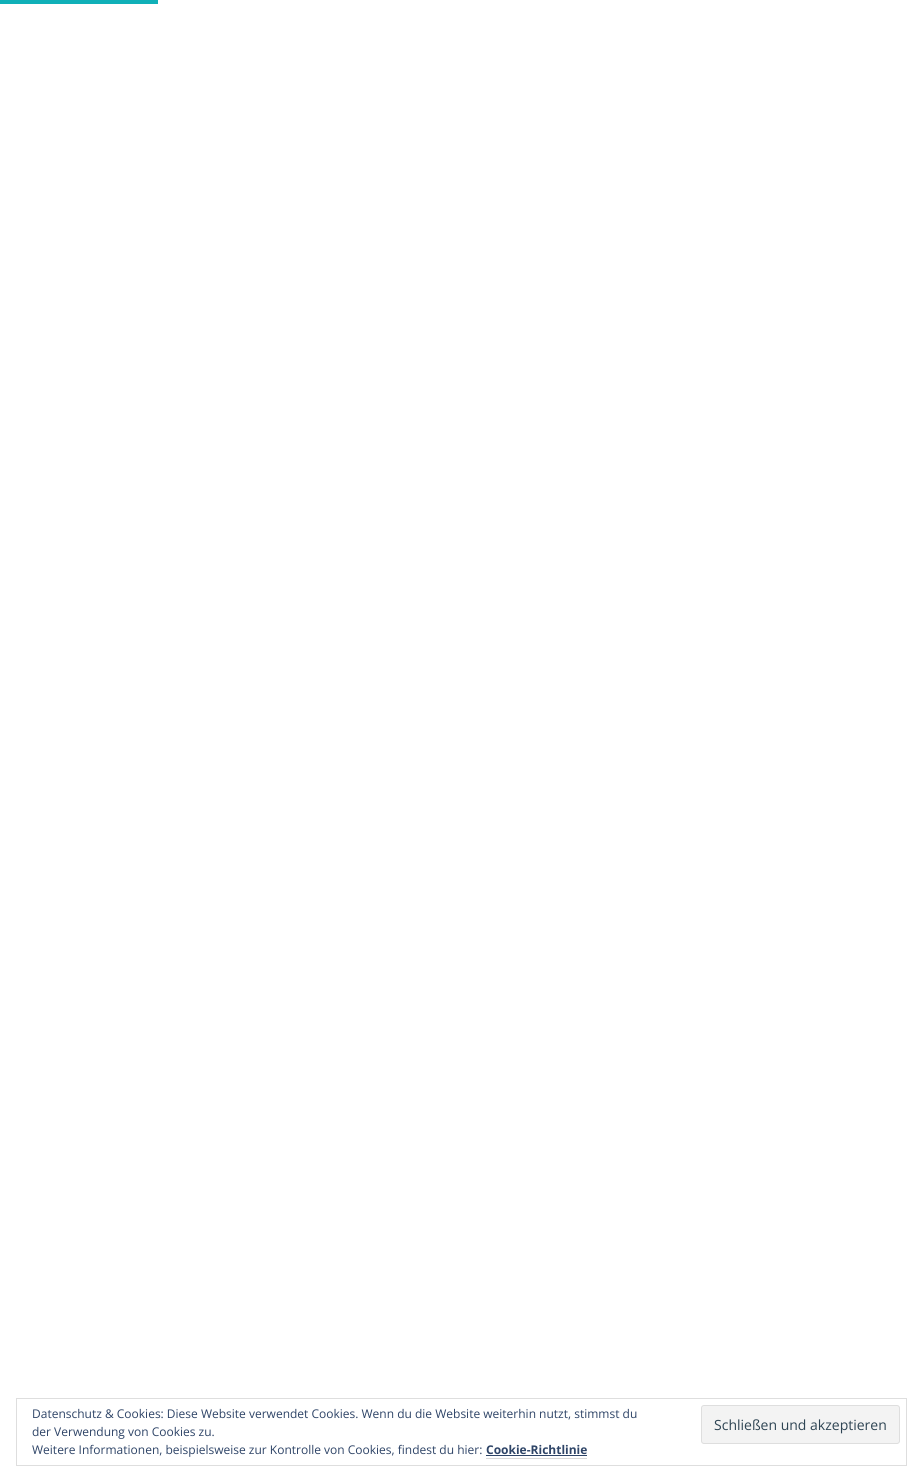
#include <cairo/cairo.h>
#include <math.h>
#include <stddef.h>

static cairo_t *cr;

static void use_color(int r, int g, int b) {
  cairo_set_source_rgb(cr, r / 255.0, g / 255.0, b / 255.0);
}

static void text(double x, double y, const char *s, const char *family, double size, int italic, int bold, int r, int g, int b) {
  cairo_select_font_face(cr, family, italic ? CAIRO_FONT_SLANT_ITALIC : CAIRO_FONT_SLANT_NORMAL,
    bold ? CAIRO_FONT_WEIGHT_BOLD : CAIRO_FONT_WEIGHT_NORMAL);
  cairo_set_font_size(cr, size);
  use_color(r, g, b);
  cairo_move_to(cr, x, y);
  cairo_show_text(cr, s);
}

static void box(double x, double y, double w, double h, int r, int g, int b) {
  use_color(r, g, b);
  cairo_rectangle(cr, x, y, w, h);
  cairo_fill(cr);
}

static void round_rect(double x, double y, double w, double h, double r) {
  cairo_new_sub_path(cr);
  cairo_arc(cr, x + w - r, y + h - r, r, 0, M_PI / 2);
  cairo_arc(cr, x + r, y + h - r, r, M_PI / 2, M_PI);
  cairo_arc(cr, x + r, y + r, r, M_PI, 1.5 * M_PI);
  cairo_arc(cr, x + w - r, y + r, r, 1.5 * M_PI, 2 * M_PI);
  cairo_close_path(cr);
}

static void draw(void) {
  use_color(255, 255, 255);
  cairo_paint(cr);
  box(0, 0, 158, 4, 16, 176, 184);
  cairo_rectangle(cr, 16.5, 1398.5, 890, 67);
  use_color(222, 222, 222);
  cairo_set_line_width(cr, 1);
  cairo_stroke(cr);
  use_color(243, 243, 243);
  round_rect(701.5, 1405.5, 198, 38, 2.5);
  cairo_fill_preserve(cr);
  use_color(222, 222, 222);
  cairo_stroke(cr);
  box(486, 1458, 101, 1, 217, 217, 217);
  box(486, 1455, 101, 1, 46, 68, 103);
  text(32, 1418, "Datenschutz & Cookies: Diese Website verwendet Cookies. Wenn du die Website weiterhin nutzt, stimmst du", "Open Sans", 12, 0, 0, 46, 68, 103);
  text(32, 1436, "der Verwendung von Cookies zu.", "Open Sans", 12, 0, 0, 46, 68, 103);
  text(714, 1430, "Schließen und akzeptieren", "Open Sans", 14, 0, 0, 46, 68, 83);
  text(32, 1454, "Weitere Informationen, beispielsweise zur Kontrolle von Cookies, findest du hier:", "Open Sans", 12, 0, 0, 46, 68, 103);
  text(486, 1454, "Cookie-Richtlinie", "Open Sans", 12, 0, 1, 46, 68, 103);
}

int main(void) {
  cairo_surface_t *surface = cairo_image_surface_create(CAIRO_FORMAT_RGB24, 923, 1482);
  cr = cairo_create(surface);
  cairo_font_options_t *options = cairo_font_options_create();
  cairo_font_options_set_hint_metrics(options, CAIRO_HINT_METRICS_OFF);
  cairo_font_options_set_hint_style(options, CAIRO_HINT_STYLE_NONE);
  cairo_set_font_options(cr, options);
  cairo_set_miter_limit(cr, 4);
  draw();
  cairo_surface_write_to_png(surface, "out.png");
  cairo_font_options_destroy(options);
  cairo_destroy(cr);
  cairo_surface_destroy(surface);
  return 0;
}
